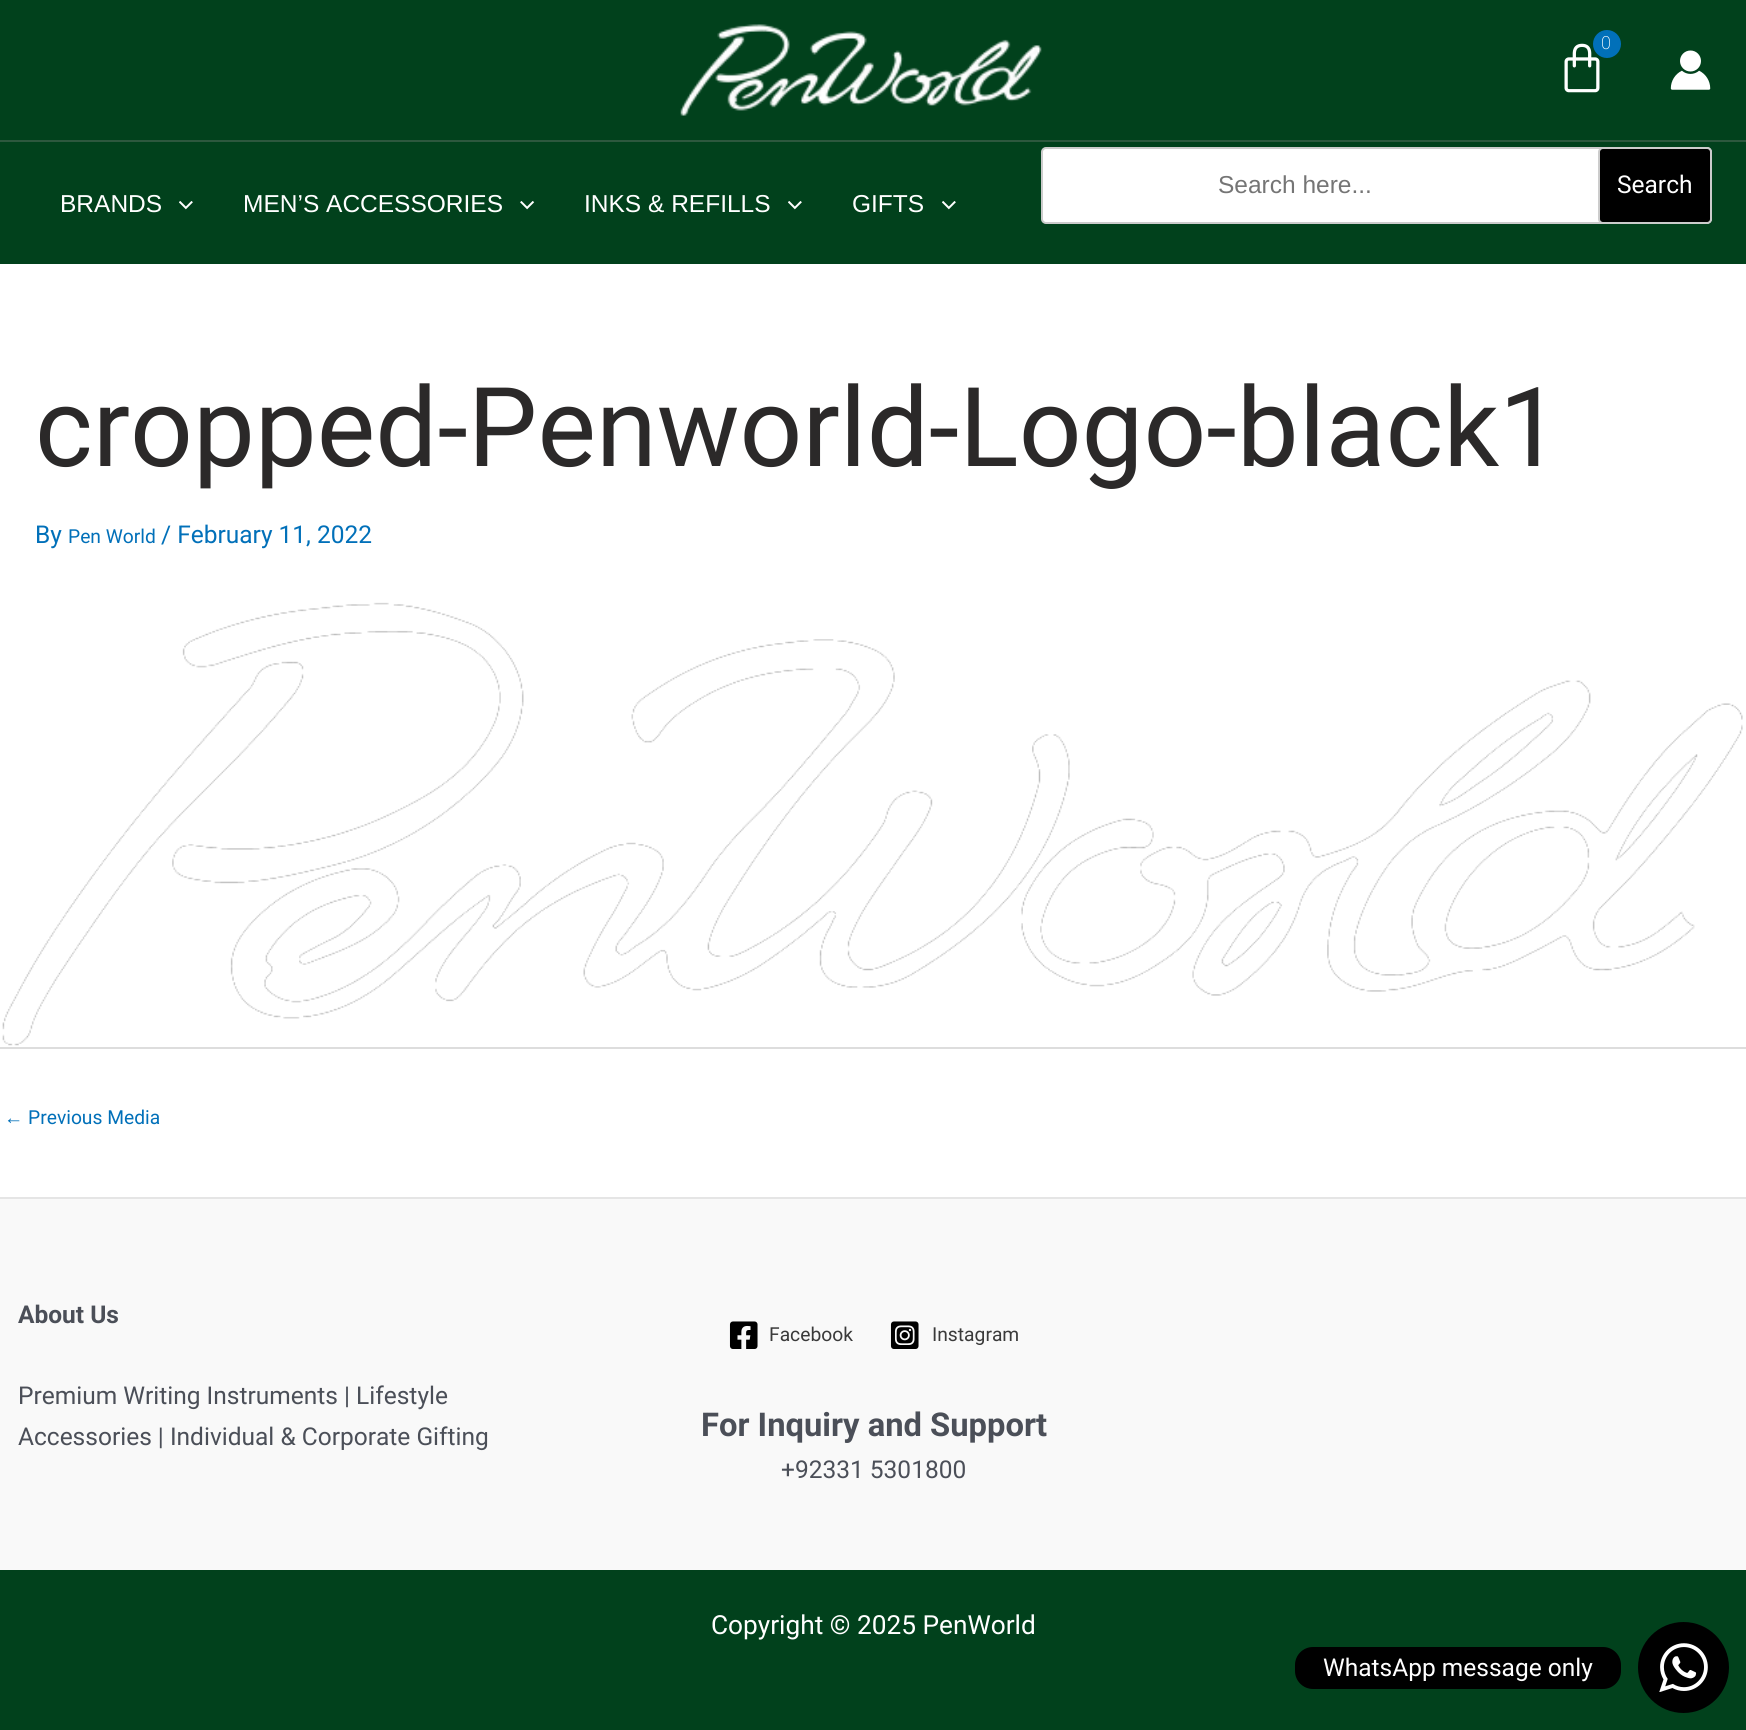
#include <cairo/cairo.h>
#include <math.h>
#include <stddef.h>

static cairo_t *cr;

static void use_color(int r, int g, int b) {
  cairo_set_source_rgb(cr, r / 255.0, g / 255.0, b / 255.0);
}

static void text(double x, double y, const char *s, const char *family, double size, int italic, int bold, int r, int g, int b) {
  cairo_select_font_face(cr, family, italic ? CAIRO_FONT_SLANT_ITALIC : CAIRO_FONT_SLANT_NORMAL,
    bold ? CAIRO_FONT_WEIGHT_BOLD : CAIRO_FONT_WEIGHT_NORMAL);
  cairo_set_font_size(cr, size);
  use_color(r, g, b);
  cairo_move_to(cr, x, y);
  cairo_show_text(cr, s);
}

static void spaced_text(double x, double y, const char *s, double letter, double word) {
  cairo_move_to(cr, x, y);
  while (*s) {
    char ch[5] = {0};
    int n = 0;
    do ch[n++] = *s++; while ((*s & 0xC0) == 0x80);
    cairo_show_text(cr, ch);
    cairo_rel_move_to(cr, letter + word * (*ch == ' '), 0);
  }
}

static void box(double x, double y, double w, double h, int r, int g, int b) {
  use_color(r, g, b);
  cairo_rectangle(cr, x, y, w, h);
  cairo_fill(cr);
}

static void round_rect(double x, double y, double w, double h, double r) {
  cairo_new_sub_path(cr);
  cairo_arc(cr, x + w - r, y + h - r, r, 0, M_PI / 2);
  cairo_arc(cr, x + r, y + h - r, r, M_PI / 2, M_PI);
  cairo_arc(cr, x + r, y + r, r, M_PI, 1.5 * M_PI);
  cairo_arc(cr, x + w - r, y + r, r, 1.5 * M_PI, 2 * M_PI);
  cairo_close_path(cr);
}

static void picture(const char *path, double x, double y, double w, double h) {
  cairo_surface_t *image = cairo_image_surface_create_from_png(path);
  cairo_save(cr);
  cairo_set_source_surface(cr, image, x, y);
  cairo_rectangle(cr, x, y, w, h);
  cairo_fill(cr);
  cairo_restore(cr);
  cairo_surface_destroy(image);
}

static void draw(void) {
  use_color(255, 255, 255);
  cairo_paint(cr);
  box(0, 0, 1746, 140, 1, 65, 28);
  box(0, 140, 1746, 2, 45, 88, 62);
  picture("img_01.png", 680, 24, 362, 92);
  picture("img_02.png", 1564, 43, 36, 50);
  use_color(1, 112, 185);
  cairo_arc(cr, 1607, 44, 14, 0, 2 * M_PI);
  cairo_fill(cr);
  picture("img_03.png", 1670, 50, 41, 40);
  box(0, 142, 1746, 122, 1, 65, 28);
  use_color(255, 255, 255);
  round_rect(1042, 148, 669, 75, 4);
  cairo_fill_preserve(cr);
  use_color(204, 204, 204);
  cairo_stroke(cr);
  use_color(0, 0, 0);
  round_rect(1599, 148, 112, 75, 4);
  cairo_fill_preserve(cr);
  use_color(204, 204, 204);
  cairo_stroke(cr);
  picture("img_04.png", 179, 201, 14, 9);
  picture("img_05.png", 520, 201, 15, 9);
  picture("img_04.png", 788, 201, 14, 9);
  picture("img_04.png", 942, 201, 14, 9);
  picture("img_06.png", 2, 602, 1741, 444);
  box(0, 1047, 1746, 2, 221, 221, 221);
  box(0, 1199, 1746, 371, 249, 249, 249);
  box(0, 1197, 1746, 2, 229, 229, 229);
  picture("img_07.png", 729, 1321, 29, 28);
  picture("img_08.png", 890, 1321, 29, 28);
  box(0, 1570, 1746, 160, 1, 65, 28);
  use_color(0, 0, 0);
  round_rect(1295, 1647, 326, 42, 18);
  cairo_fill(cr);
  cairo_arc(cr, 1683.5, 1667.5, 45.5, 0, 2 * M_PI);
  cairo_fill(cr);
  picture("img_09.png", 1659, 1643, 49, 49);
  cairo_select_font_face(cr, "Roboto ExtraLight", CAIRO_FONT_SLANT_NORMAL, CAIRO_FONT_WEIGHT_NORMAL);
  cairo_set_font_size(cr, 18);
  use_color(255, 255, 255);
  spaced_text(1601, 49, "0", 2, 0);
  text(1218, 193, "Search here...", "Liberation Sans", 24.5, 0, 0, 117, 117, 117);
  text(1617, 193, "Search", "Roboto", 24.5, 0, 0, 255, 255, 255);
  text(60, 212, "BRANDS", "Liberation Sans", 24.5, 0, 0, 255, 255, 255);
  text(243, 212, "MEN’S ACCESSORIES", "Liberation Sans", 24.5, 0, 0, 255, 255, 255);
  text(584, 212, "INKS & REFILLS", "Liberation Sans", 24.5, 0, 0, 255, 255, 255);
  text(852, 212, "GIFTS", "Liberation Sans", 24.5, 0, 0, 255, 255, 255);
  text(35, 466, "cropped-Penworld-Logo-black1", "Roboto", 110.25, 0, 0, 43, 41, 41);
  text(35, 543, "By", "Roboto", 24.5, 0, 0, 1, 112, 185);
  text(68, 543, "Pen World", "Roboto", 19.25, 0, 0, 1, 112, 185);
  text(161, 543, "/ February 11, 2022", "Roboto", 24.5, 0, 0, 1, 112, 185);
  text(4, 1124, "←", "Liberation Sans", 19.25, 0, 0, 1, 112, 185);
  text(28, 1124, "Previous Media", "Roboto", 19.25, 0, 0, 1, 112, 185);
  text(18, 1323, "About Us", "Roboto", 24.5, 0, 1, 75, 79, 88);
  text(18, 1404, "Premium Writing Instruments | Lifestyle", "Roboto", 24.5, 0, 0, 75, 79, 88);
  text(18, 1445, "Accessories | Individual & Corporate Gifting", "Roboto", 24.5, 0, 0, 75, 79, 88);
  text(769, 1341, "Facebook", "Roboto", 19.25, 0, 0, 58, 58, 58);
  text(932, 1341, "Instagram", "Roboto", 19.25, 0, 0, 58, 58, 58);
  text(701, 1436, "For Inquiry and Support", "Roboto", 32.75, 0, 1, 75, 79, 88);
  text(781, 1478, "+92331 5301800", "Roboto", 24.5, 0, 0, 75, 79, 88);
  text(711, 1634, "Copyright © 2025 PenWorld", "Roboto", 26.25, 0, 0, 255, 255, 255);
  text(1323, 1676, "WhatsApp message only", "Roboto", 24.5, 0, 0, 255, 255, 255);
}

int main(void) {
  cairo_surface_t *surface = cairo_image_surface_create(CAIRO_FORMAT_RGB24, 1746, 1730);
  cr = cairo_create(surface);
  cairo_font_options_t *options = cairo_font_options_create();
  cairo_font_options_set_hint_metrics(options, CAIRO_HINT_METRICS_OFF);
  cairo_font_options_set_hint_style(options, CAIRO_HINT_STYLE_NONE);
  cairo_set_font_options(cr, options);
  cairo_set_miter_limit(cr, 4);
  draw();
  cairo_surface_write_to_png(surface, "out.png");
  cairo_font_options_destroy(options);
  cairo_destroy(cr);
  cairo_surface_destroy(surface);
  return 0;
}
